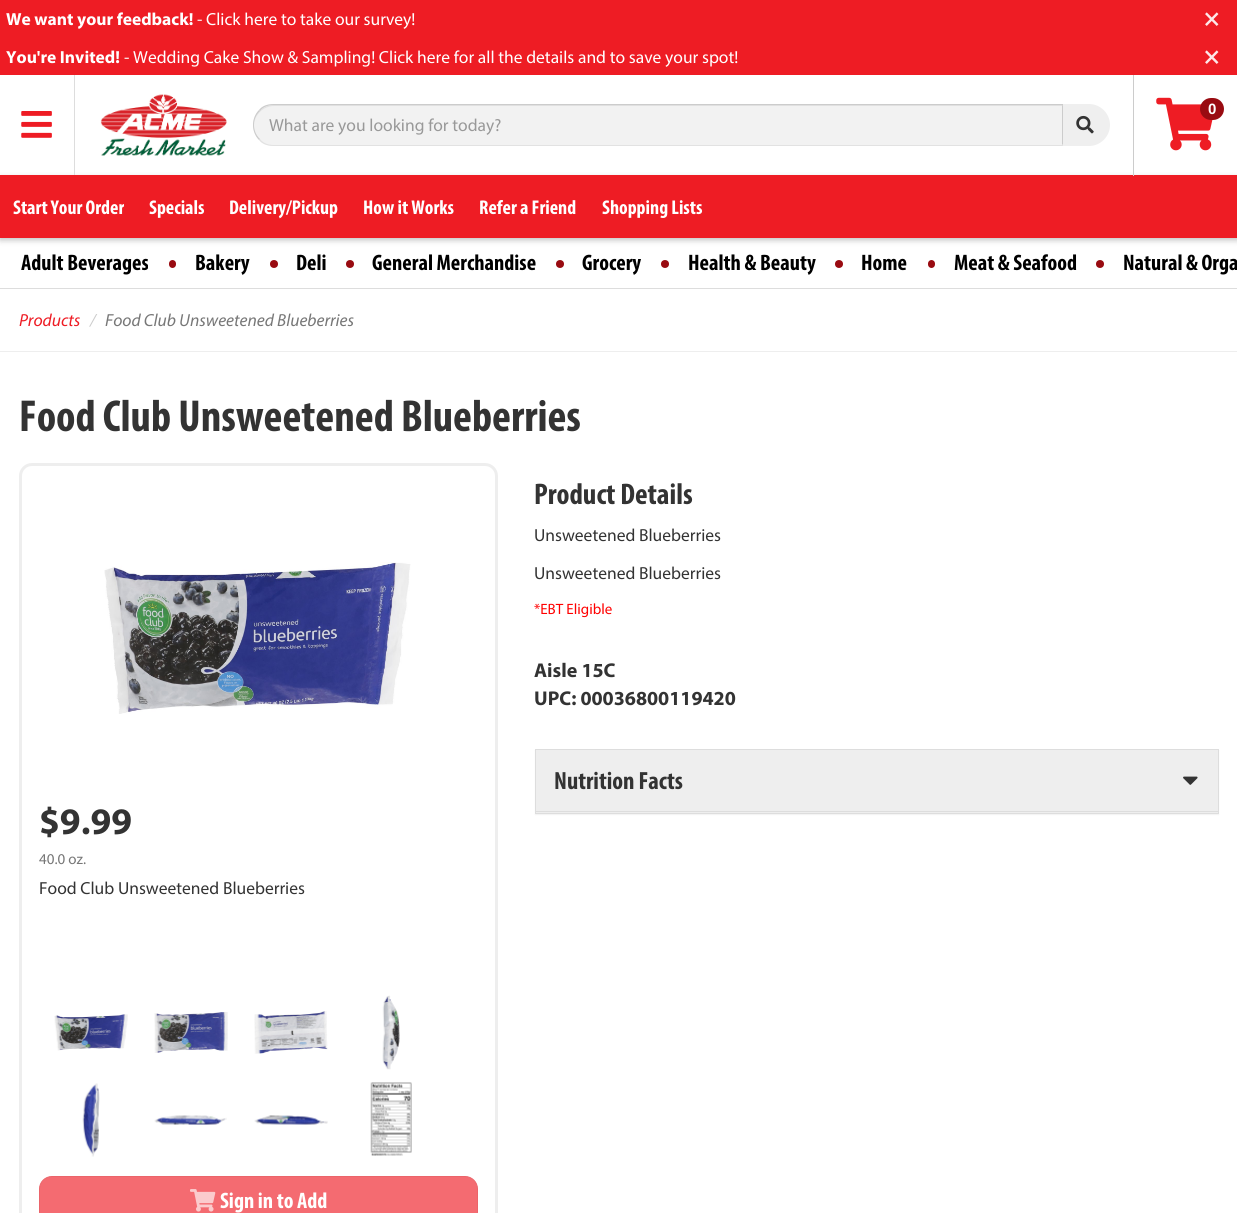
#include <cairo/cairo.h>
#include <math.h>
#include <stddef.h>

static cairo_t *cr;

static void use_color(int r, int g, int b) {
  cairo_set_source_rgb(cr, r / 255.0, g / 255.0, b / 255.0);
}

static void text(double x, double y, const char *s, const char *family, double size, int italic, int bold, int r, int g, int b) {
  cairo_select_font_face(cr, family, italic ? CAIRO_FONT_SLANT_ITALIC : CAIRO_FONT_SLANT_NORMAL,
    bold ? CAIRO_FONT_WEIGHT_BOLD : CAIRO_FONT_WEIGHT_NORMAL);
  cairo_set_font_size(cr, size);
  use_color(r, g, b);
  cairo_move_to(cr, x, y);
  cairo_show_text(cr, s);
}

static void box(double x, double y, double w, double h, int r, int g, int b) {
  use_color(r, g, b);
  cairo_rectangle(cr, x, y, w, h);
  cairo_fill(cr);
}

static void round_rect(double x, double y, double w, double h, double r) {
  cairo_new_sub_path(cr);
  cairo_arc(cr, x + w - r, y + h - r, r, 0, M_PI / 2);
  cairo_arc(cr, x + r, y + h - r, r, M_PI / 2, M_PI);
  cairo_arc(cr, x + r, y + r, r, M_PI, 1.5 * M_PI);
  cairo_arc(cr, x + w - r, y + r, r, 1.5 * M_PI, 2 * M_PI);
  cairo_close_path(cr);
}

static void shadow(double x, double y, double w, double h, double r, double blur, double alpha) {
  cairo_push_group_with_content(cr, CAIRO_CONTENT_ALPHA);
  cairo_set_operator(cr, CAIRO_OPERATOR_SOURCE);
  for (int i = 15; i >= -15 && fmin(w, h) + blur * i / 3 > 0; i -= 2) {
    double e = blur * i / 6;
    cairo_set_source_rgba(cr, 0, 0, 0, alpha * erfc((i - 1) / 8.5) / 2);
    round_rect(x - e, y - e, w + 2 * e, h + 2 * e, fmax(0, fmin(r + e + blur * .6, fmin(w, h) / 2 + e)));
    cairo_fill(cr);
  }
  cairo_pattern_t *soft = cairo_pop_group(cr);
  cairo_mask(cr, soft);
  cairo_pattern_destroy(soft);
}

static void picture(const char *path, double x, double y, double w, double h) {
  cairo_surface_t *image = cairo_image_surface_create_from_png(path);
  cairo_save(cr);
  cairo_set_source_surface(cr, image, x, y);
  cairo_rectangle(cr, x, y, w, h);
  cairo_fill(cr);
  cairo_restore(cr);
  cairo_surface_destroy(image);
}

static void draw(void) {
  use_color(255, 255, 255);
  cairo_paint(cr);
  box(0, 0, 1237, 75, 238, 28, 36);
  use_color(0, 0, 0);
  shadow(0, 178, 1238, 62, 0, 3, 0.25);
  box(74, 75, 1, 100, 221, 221, 221);
  picture("img_01.png", 21, 111, 31, 27);
  picture("img_02.png", 100, 94, 127, 62);
  box(0, 175, 1237, 63, 238, 28, 36);
  box(1133, 75, 1, 101, 204, 204, 204);
  picture("img_03.png", 1156, 97, 57, 54);
  use_color(153, 11, 17);
  round_rect(1200, 98, 24, 22, 11);
  cairo_fill(cr);
  use_color(242, 242, 242);
  cairo_new_path(cr);
  cairo_move_to(cr, 274, 104);
  cairo_line_to(cr, 1064, 104);
  cairo_line_to(cr, 1064, 146);
  cairo_line_to(cr, 274, 146);
  cairo_curve_to(cr, 262.5, 146, 253, 136.5, 253, 125);
  cairo_curve_to(cr, 253, 113.5, 262.5, 104, 274, 104);
  cairo_close_path(cr);
  cairo_fill(cr);
  use_color(224, 224, 224);
  cairo_new_path(cr);
  cairo_move_to(cr, 274, 106);
  cairo_line_to(cr, 1062, 106);
  cairo_line_to(cr, 1062, 145);
  cairo_line_to(cr, 1063, 145);
  cairo_line_to(cr, 1063, 105);
  cairo_line_to(cr, 274, 105);
  cairo_curve_to(cr, 263, 105, 254, 114, 254, 126);
  cairo_curve_to(cr, 254, 115, 263, 106, 274, 106);
  cairo_close_path(cr);
  cairo_fill(cr);
  use_color(204, 204, 204);
  cairo_new_path(cr);
  cairo_move_to(cr, 274, 104);
  cairo_curve_to(cr, 267, 104, 262, 106, 259, 110);
  cairo_line_to(cr, 260, 111);
  cairo_curve_to(cr, 263, 107, 268, 105, 274, 105);
  cairo_line_to(cr, 1062, 105);
  cairo_line_to(cr, 1062, 106);
  cairo_line_to(cr, 1064, 104);
  cairo_close_path(cr);
  cairo_fill(cr);
  cairo_new_path(cr);
  cairo_move_to(cr, 1064, 146);
  cairo_line_to(cr, 1062, 144);
  cairo_line_to(cr, 1062, 106);
  cairo_line_to(cr, 1064, 104);
  cairo_close_path(cr);
  cairo_fill(cr);
  use_color(226, 226, 226);
  cairo_new_path(cr);
  cairo_move_to(cr, 1064, 146);
  cairo_line_to(cr, 274, 146);
  cairo_curve_to(cr, 267, 146, 262, 144, 259, 140);
  cairo_line_to(cr, 260, 139);
  cairo_curve_to(cr, 263, 143, 268, 145, 274, 145);
  cairo_line_to(cr, 1062, 145);
  cairo_line_to(cr, 1062, 144);
  cairo_close_path(cr);
  cairo_fill(cr);
  use_color(204, 204, 204);
  cairo_new_path(cr);
  cairo_move_to(cr, 259, 110);
  cairo_curve_to(cr, 251, 118, 251, 132, 259, 140);
  cairo_line_to(cr, 260, 139);
  cairo_curve_to(cr, 252, 131.5, 252, 118.5, 260, 111);
  cairo_close_path(cr);
  cairo_fill(cr);
  use_color(239, 239, 239);
  cairo_new_path(cr);
  cairo_move_to(cr, 1063, 104);
  cairo_line_to(cr, 1089, 104);
  cairo_curve_to(cr, 1100.5, 104, 1110, 113.5, 1110, 125);
  cairo_curve_to(cr, 1110, 136.5, 1100.5, 146, 1089, 146);
  cairo_line_to(cr, 1063, 146);
  cairo_close_path(cr);
  cairo_fill(cr);
  picture("img_04.png", 1076, 115, 18, 19);
  use_color(153, 11, 17);
  round_rect(169, 260, 7, 8, 3.5);
  cairo_fill(cr);
  cairo_arc(cr, 274, 264, 4, 0, 2 * M_PI);
  cairo_fill(cr);
  cairo_arc(cr, 350, 264, 4, 0, 2 * M_PI);
  cairo_fill(cr);
  cairo_arc(cr, 560, 264, 4, 0, 2 * M_PI);
  cairo_fill(cr);
  cairo_arc(cr, 665, 264, 4, 0, 2 * M_PI);
  cairo_fill(cr);
  cairo_arc(cr, 839, 264, 4, 0, 2 * M_PI);
  cairo_fill(cr);
  round_rect(928, 260, 7, 8, 3.5);
  cairo_fill(cr);
  cairo_arc(cr, 1100, 264, 4, 0, 2 * M_PI);
  cairo_fill(cr);
  box(0, 288, 1237, 1, 221, 221, 221);
  box(0, 351, 1237, 1, 238, 238, 238);
  use_color(0, 0, 0);
  shadow(535, 750, 684, 65, 0, 0.5, 0.05);
  cairo_rectangle(cr, 535.5, 749.5, 683, 64);
  use_color(221, 221, 221);
  cairo_set_line_width(cr, 1);
  cairo_stroke(cr);
  box(536, 750, 682, 63, 238, 238, 238);
  box(536, 811, 682, 1, 221, 221, 221);
  picture("img_05.png", 1183, 776, 15, 9);
  round_rect(20.5, 464.5, 476, 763, 11.5);
  use_color(238, 238, 238);
  cairo_set_line_width(cr, 3);
  cairo_stroke(cr);
  picture("img_06.png", 104, 562, 307, 152);
  picture("img_07.png", 54, 1014, 74, 37);
  picture("img_08.png", 154, 1012, 74, 41);
  picture("img_09.png", 254, 1011, 74, 43);
  picture("img_10.png", 382, 995, 18, 75);
  picture("img_11.png", 82, 1083, 18, 74);
  picture("img_12.png", 154, 1115, 73, 10);
  picture("img_13.png", 254, 1115, 74, 10);
  picture("img_14.png", 370, 1082, 42, 74);
  use_color(244, 107, 113);
  round_rect(39.5, 1176.5, 438, 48, 12.5);
  cairo_fill_preserve(cr);
  use_color(235, 100, 106);
  cairo_set_line_width(cr, 1);
  cairo_stroke(cr);
  picture("img_15.png", 190, 1189, 26, 23);
  text(6, 25, "We want your feedback!", "Myriad", 17.5, 0, 1, 255, 255, 255);
  text(197, 25, "- Click here to take our survey!", "Myriad", 17.5, 0, 0, 255, 255, 255);
  text(1204, 26, "×", "Myriad", 26, 0, 1, 253, 232, 233);
  text(6, 63, "You're Invited!", "Myriad", 17.5, 0, 1, 255, 255, 255);
  text(124, 63, "- Wedding Cake Show & Sampling! Click here for all the details and to save your spot!", "Myriad", 17.5, 0, 0, 255, 255, 255);
  text(1204, 64, "×", "Myriad", 26, 0, 1, 253, 232, 233);
  text(1208, 114, "0", "Liberation Sans", 15, 0, 1, 255, 255, 255);
  text(269, 131, "What are you looking for today?", "Myriad", 17.5, 0, 0, 153, 153, 153);
  text(13, 214, "Start Your Order", "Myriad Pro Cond", 20, 0, 1, 255, 255, 255);
  text(149, 214, "Specials", "Myriad Pro Cond", 20, 0, 1, 255, 255, 255);
  text(229, 214, "Delivery/Pickup", "Myriad Pro Cond", 20, 0, 1, 255, 255, 255);
  text(363, 214, "How it Works", "Myriad Pro Cond", 20, 0, 1, 255, 255, 255);
  text(479, 214, "Refer a Friend", "Myriad Pro Cond", 20, 0, 1, 255, 255, 255);
  text(602, 214, "Shopping Lists", "Myriad Pro Cond", 20, 0, 1, 255, 255, 255);
  text(21, 270, "Adult Beverages", "Myriad Pro Cond", 22.5, 0, 1, 0, 0, 0);
  text(195, 270, "Bakery", "Myriad Pro Cond", 22.5, 0, 1, 0, 0, 0);
  text(296, 270, "Deli", "Myriad Pro Cond", 22.5, 0, 1, 0, 0, 0);
  text(372, 270, "General Merchandise", "Myriad Pro Cond", 22.5, 0, 1, 0, 0, 0);
  text(582, 270, "Grocery", "Myriad Pro Cond", 22.5, 0, 1, 0, 0, 0);
  text(688, 270, "Health & Beauty", "Myriad Pro Cond", 22.5, 0, 1, 0, 0, 0);
  text(861, 270, "Home", "Myriad Pro Cond", 22.5, 0, 1, 0, 0, 0);
  text(954, 270, "Meat & Seafood", "Myriad Pro Cond", 22.5, 0, 1, 0, 0, 0);
  text(1123, 270, "Natural & Orga", "Myriad Pro Cond", 22.5, 0, 1, 0, 0, 0);
  text(19, 326, "Products", "Myriad", 17.5, 1, 0, 238, 28, 36);
  text(90, 326, "/", "Myriad", 17.5, 1, 0, 204, 204, 204);
  text(105, 326, "Food Club Unsweetened Blueberries", "Myriad", 17.5, 1, 0, 119, 119, 119);
  text(19, 431, "Food Club Unsweetened Blueberries", "Myriad Pro Cond", 45, 0, 1, 51, 51, 51);
  text(534, 504, "Product Details", "Myriad Pro Cond", 30, 0, 1, 51, 51, 51);
  text(534, 541, "Unsweetened Blueberries", "Myriad", 17.5, 0, 0, 51, 51, 51);
  text(534, 579, "Unsweetened Blueberries", "Myriad", 17.5, 0, 0, 51, 51, 51);
  text(534, 614, "*EBT Eligible", "Myriad", 15, 0, 0, 255, 0, 0);
  text(534, 677, "Aisle 15C", "Myriad", 20, 0, 1, 51, 51, 51);
  text(534, 705, "UPC: 00036800119420", "Myriad", 20, 0, 1, 51, 51, 51);
  text(554, 789, "Nutrition Facts", "Myriad Pro Cond", 25, 0, 1, 51, 51, 51);
  text(39, 834, "$9.99", "Myriad", 37.5, 0, 1, 51, 51, 51);
  text(39, 864, "40.0 oz.", "Myriad", 15, 0, 0, 119, 119, 119);
  text(39, 894, "Food Club Unsweetened Blueberries", "Myriad", 17.5, 0, 0, 51, 51, 51);
  text(220, 1208, "Sign in to Add", "Myriad Pro Cond", 22.5, 0, 1, 255, 255, 255);
}

int main(void) {
  cairo_surface_t *surface = cairo_image_surface_create(CAIRO_FORMAT_RGB24, 1237, 1213);
  cr = cairo_create(surface);
  cairo_font_options_t *options = cairo_font_options_create();
  cairo_font_options_set_hint_metrics(options, CAIRO_HINT_METRICS_OFF);
  cairo_font_options_set_hint_style(options, CAIRO_HINT_STYLE_NONE);
  cairo_set_font_options(cr, options);
  cairo_set_miter_limit(cr, 4);
  draw();
  cairo_surface_write_to_png(surface, "out.png");
  cairo_font_options_destroy(options);
  cairo_destroy(cr);
  cairo_surface_destroy(surface);
  return 0;
}
